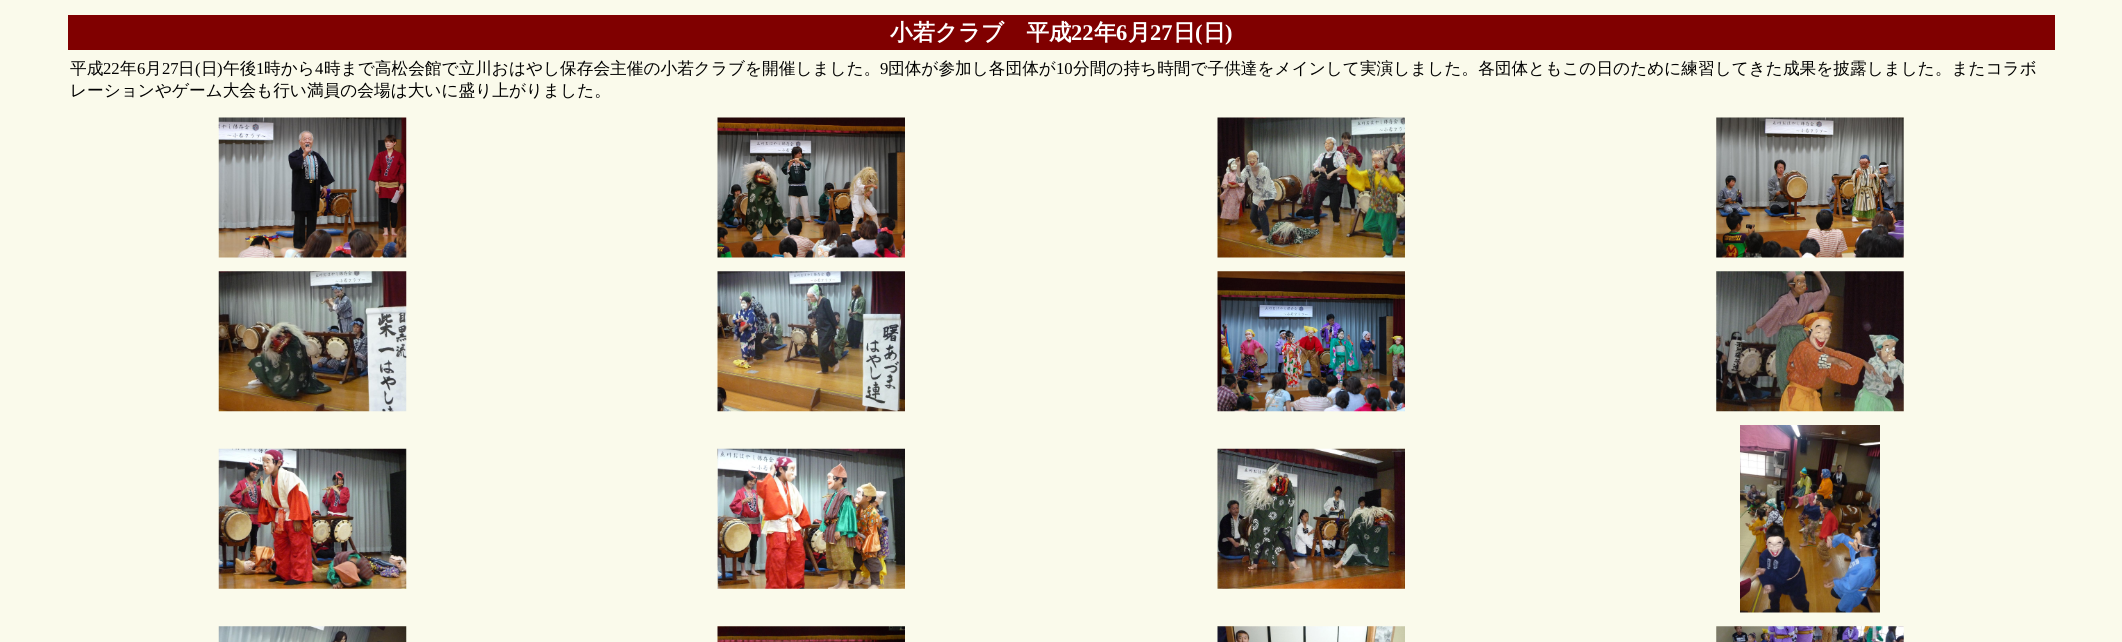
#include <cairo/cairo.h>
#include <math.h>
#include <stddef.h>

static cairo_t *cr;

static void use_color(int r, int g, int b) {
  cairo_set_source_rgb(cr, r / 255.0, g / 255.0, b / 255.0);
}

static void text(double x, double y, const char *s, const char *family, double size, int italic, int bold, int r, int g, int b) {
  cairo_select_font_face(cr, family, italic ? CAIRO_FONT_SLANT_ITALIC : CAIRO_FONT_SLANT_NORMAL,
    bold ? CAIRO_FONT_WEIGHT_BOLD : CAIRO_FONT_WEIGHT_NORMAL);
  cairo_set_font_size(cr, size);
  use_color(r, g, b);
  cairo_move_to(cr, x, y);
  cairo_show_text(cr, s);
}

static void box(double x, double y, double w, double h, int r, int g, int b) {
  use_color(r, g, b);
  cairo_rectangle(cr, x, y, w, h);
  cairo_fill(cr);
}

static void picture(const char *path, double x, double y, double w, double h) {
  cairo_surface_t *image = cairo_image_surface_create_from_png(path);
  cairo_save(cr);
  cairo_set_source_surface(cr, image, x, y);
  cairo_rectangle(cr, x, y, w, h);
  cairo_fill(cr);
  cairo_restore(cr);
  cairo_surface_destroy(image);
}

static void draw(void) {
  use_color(250, 250, 235);
  cairo_paint(cr);
  box(68, 15, 1987, 35, 128, 0, 0);
  picture("img_01.png", 218, 117, 189, 141);
  picture("img_02.png", 717, 117, 188, 141);
  picture("img_03.png", 1217, 117, 188, 141);
  picture("img_04.png", 1716, 117, 188, 141);
  picture("img_05.png", 218, 271, 189, 141);
  picture("img_06.png", 717, 271, 188, 141);
  picture("img_07.png", 1217, 271, 188, 141);
  picture("img_08.png", 1716, 271, 188, 141);
  picture("img_09.png", 218, 448, 189, 141);
  picture("img_10.png", 717, 448, 188, 141);
  picture("img_11.png", 1217, 448, 188, 141);
  picture("img_12.png", 1740, 425, 140, 188);
  picture("img_13.png", 218, 626, 189, 16);
  picture("img_14.png", 717, 626, 188, 16);
  picture("img_15.png", 1217, 626, 188, 16);
  picture("img_16.png", 1716, 626, 188, 16);
  text(890, 40, "小若クラブ　平成", "WenQuanYi Zen Hei", 22.5, 0, 1, 255, 255, 255);
  text(1071, 40, "22", "Liberation Serif", 22.5, 0, 1, 255, 255, 255);
  text(1094, 40, "年", "WenQuanYi Zen Hei", 22.5, 0, 1, 255, 255, 255);
  text(1116, 40, "6", "Liberation Serif", 22.5, 0, 1, 255, 255, 255);
  text(1128, 40, "月", "WenQuanYi Zen Hei", 22.5, 0, 1, 255, 255, 255);
  text(1150, 40, "27", "Liberation Serif", 22.5, 0, 1, 255, 255, 255);
  text(1173, 40, "日", "WenQuanYi Zen Hei", 22.5, 0, 1, 255, 255, 255);
  text(1195, 40, "(", "Liberation Serif", 22.5, 0, 1, 255, 255, 255);
  text(1203, 40, "日", "WenQuanYi Zen Hei", 22.5, 0, 1, 255, 255, 255);
  text(1225, 40, ")", "Liberation Serif", 22.5, 0, 1, 255, 255, 255);
  text(70, 74, "平成", "WenQuanYi Zen Hei Medium", 16.67, 0, 0, 0, 0, 0);
  text(103, 74, "22", "Liberation Serif", 16.67, 0, 0, 0, 0, 0);
  text(120, 74, "年", "WenQuanYi Zen Hei Medium", 16.67, 0, 0, 0, 0, 0);
  text(137, 74, "6", "Liberation Serif", 16.67, 0, 0, 0, 0, 0);
  text(145, 74, "月", "WenQuanYi Zen Hei Medium", 16.67, 0, 0, 0, 0, 0);
  text(162, 74, "27", "Liberation Serif", 16.67, 0, 0, 0, 0, 0);
  text(178, 74, "日", "WenQuanYi Zen Hei Medium", 16.67, 0, 0, 0, 0, 0);
  text(195, 74, "(", "Liberation Serif", 16.67, 0, 0, 0, 0, 0);
  text(201, 74, "日", "WenQuanYi Zen Hei Medium", 16.67, 0, 0, 0, 0, 0);
  text(217, 74, ")", "Liberation Serif", 16.67, 0, 0, 0, 0, 0);
  text(223, 74, "午後", "WenQuanYi Zen Hei Medium", 16.67, 0, 0, 0, 0, 0);
  text(256, 74, "1", "Liberation Serif", 16.67, 0, 0, 0, 0, 0);
  text(264, 74, "時から", "WenQuanYi Zen Hei Medium", 16.67, 0, 0, 0, 0, 0);
  text(315, 74, "4", "Liberation Serif", 16.67, 0, 0, 0, 0, 0);
  text(324, 74, "時まで高松会館で立川おはやし保存会主催の小若クラブを開催しました。", "WenQuanYi Zen Hei Medium", 16.67, 0, 0, 0, 0, 0);
  text(880, 74, "9", "Liberation Serif", 16.67, 0, 0, 0, 0, 0);
  text(888, 74, "団体が参加し各団体が", "WenQuanYi Zen Hei Medium", 16.67, 0, 0, 0, 0, 0);
  text(1056, 74, "10", "Liberation Serif", 16.67, 0, 0, 0, 0, 0);
  text(1073, 74, "分間の持ち時間で子供達をメインして実演しました。各団体ともこの日のために練習してきた成果を披露しました。またコラボ", "WenQuanYi Zen Hei Medium", 16.67, 0, 0, 0, 0, 0);
  text(70, 96, "レーションやゲーム大会も行い満員の会場は大いに盛り上がりました。", "WenQuanYi Zen Hei Medium", 16.67, 0, 0, 0, 0, 0);
}

int main(void) {
  cairo_surface_t *surface = cairo_image_surface_create(CAIRO_FORMAT_RGB24, 2122, 642);
  cr = cairo_create(surface);
  cairo_font_options_t *options = cairo_font_options_create();
  cairo_font_options_set_hint_metrics(options, CAIRO_HINT_METRICS_OFF);
  cairo_font_options_set_hint_style(options, CAIRO_HINT_STYLE_NONE);
  cairo_set_font_options(cr, options);
  cairo_set_miter_limit(cr, 4);
  draw();
  cairo_surface_write_to_png(surface, "out.png");
  cairo_font_options_destroy(options);
  cairo_destroy(cr);
  cairo_surface_destroy(surface);
  return 0;
}
